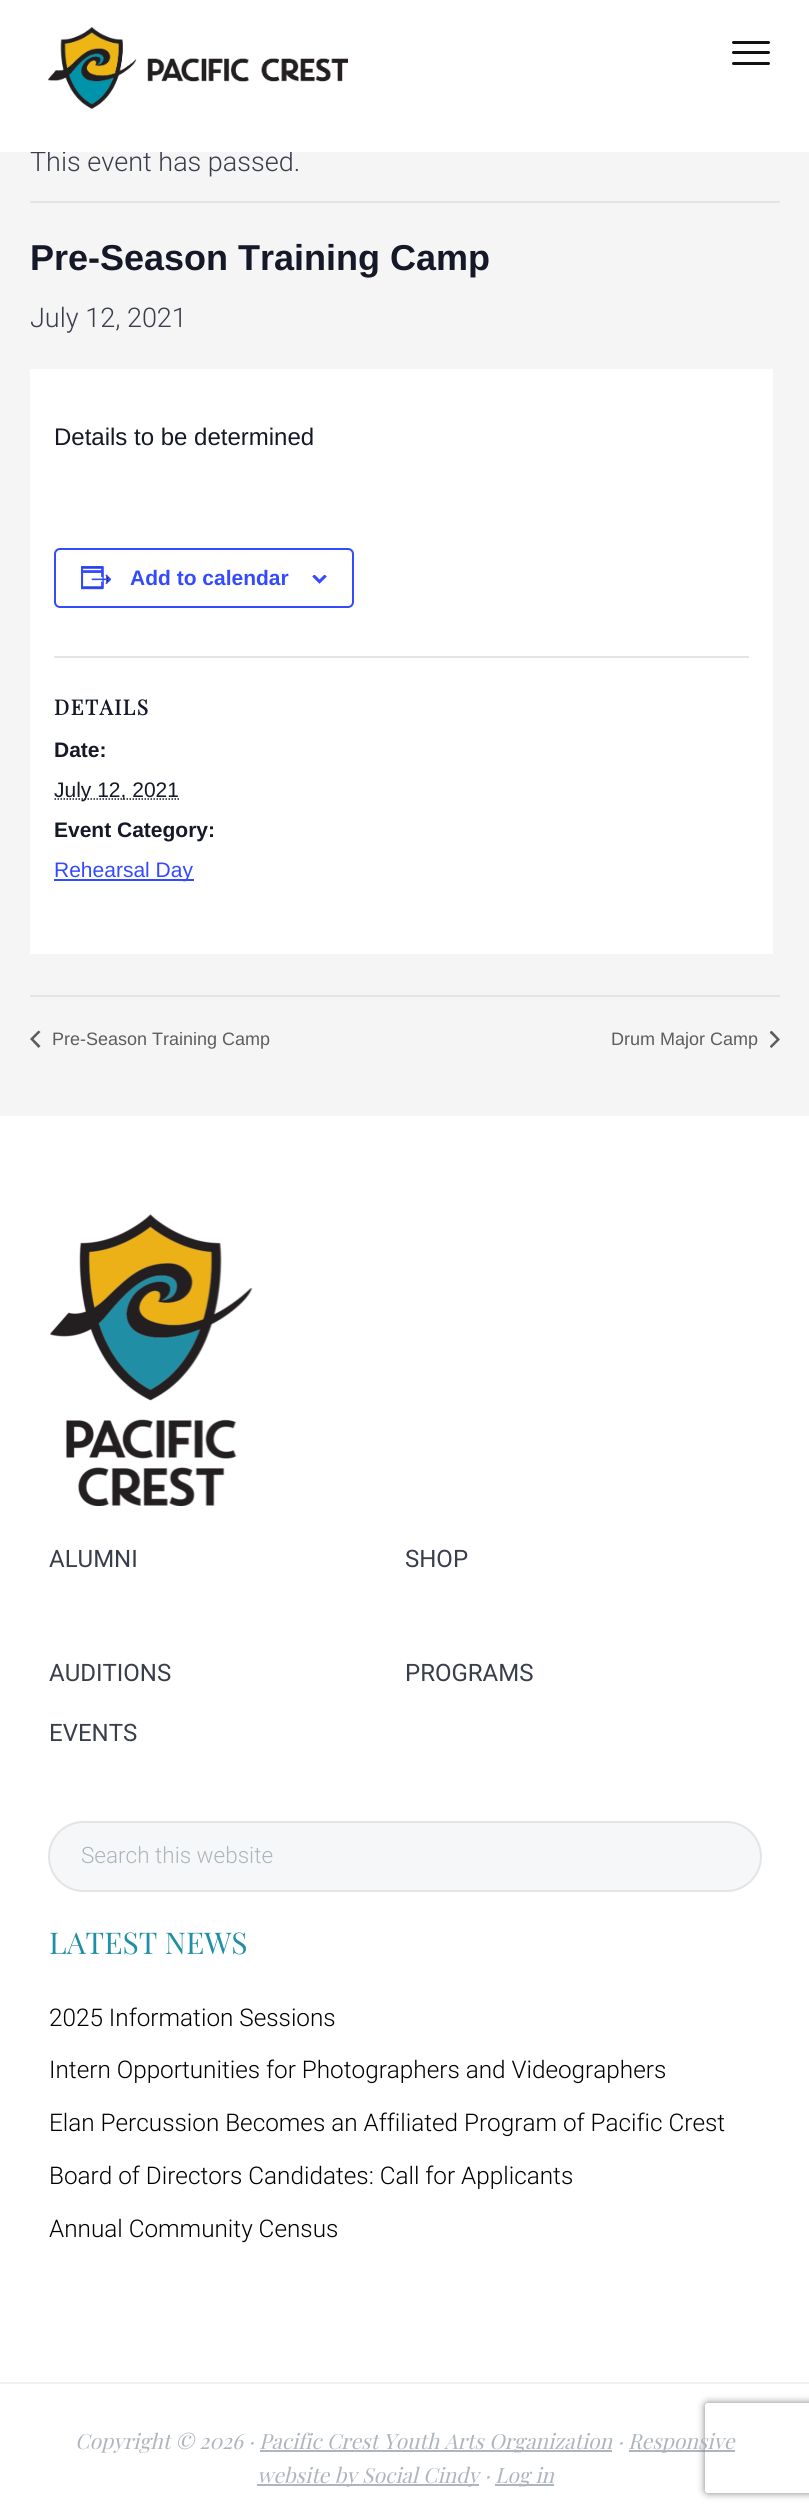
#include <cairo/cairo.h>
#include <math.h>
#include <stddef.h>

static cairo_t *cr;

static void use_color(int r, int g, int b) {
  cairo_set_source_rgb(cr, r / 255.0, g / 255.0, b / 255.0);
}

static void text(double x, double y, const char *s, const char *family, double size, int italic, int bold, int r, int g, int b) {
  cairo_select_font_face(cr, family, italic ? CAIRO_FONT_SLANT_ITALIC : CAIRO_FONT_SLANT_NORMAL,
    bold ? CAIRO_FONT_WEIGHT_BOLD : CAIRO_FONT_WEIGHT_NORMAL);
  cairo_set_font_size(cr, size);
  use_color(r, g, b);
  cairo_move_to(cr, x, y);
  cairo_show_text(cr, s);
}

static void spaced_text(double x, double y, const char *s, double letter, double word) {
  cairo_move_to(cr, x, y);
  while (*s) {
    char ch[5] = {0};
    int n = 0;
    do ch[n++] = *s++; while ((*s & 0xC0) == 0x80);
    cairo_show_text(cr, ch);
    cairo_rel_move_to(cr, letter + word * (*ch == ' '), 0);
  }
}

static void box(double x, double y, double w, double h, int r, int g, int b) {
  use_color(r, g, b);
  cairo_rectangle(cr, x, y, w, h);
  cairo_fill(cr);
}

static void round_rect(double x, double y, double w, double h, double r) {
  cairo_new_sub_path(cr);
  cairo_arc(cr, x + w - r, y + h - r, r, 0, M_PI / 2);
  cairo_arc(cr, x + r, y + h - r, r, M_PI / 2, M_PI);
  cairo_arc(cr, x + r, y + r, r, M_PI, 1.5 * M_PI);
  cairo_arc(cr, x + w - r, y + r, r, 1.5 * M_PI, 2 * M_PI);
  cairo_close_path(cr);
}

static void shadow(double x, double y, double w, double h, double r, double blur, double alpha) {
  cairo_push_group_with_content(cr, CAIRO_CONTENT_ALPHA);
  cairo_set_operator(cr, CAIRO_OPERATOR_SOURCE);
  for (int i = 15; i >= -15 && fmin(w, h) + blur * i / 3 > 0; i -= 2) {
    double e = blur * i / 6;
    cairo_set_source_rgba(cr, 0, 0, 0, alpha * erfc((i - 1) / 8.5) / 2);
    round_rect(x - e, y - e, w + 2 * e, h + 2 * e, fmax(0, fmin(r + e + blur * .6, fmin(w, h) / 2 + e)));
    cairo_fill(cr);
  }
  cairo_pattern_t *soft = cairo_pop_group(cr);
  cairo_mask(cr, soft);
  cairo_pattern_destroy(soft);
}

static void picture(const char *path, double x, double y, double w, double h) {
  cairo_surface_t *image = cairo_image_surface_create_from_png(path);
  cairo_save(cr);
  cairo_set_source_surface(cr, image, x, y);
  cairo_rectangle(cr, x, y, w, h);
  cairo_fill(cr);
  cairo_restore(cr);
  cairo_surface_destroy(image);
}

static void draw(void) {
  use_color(245, 245, 245);
  cairo_paint(cr);
  box(30, 201, 750, 2, 228, 228, 228);
  box(30, 369, 743, 585, 255, 255, 255);
  round_rect(55, 549, 298, 58, 5);
  use_color(51, 74, 255);
  cairo_stroke(cr);
  picture("img_02.png", 81, 566, 31, 24);
  picture("img_03.png", 312, 575, 15, 9);
  box(54, 656, 695, 2, 228, 228, 228);
  cairo_new_path(cr);
  cairo_move_to(cr, 54.5, 799);
  cairo_line_to(cr, 179, 799);
  use_color(20, 24, 39);
  cairo_set_line_width(cr, 1.5);
  cairo_set_dash(cr, (double[]){1.5, 1.5}, 2, 0);
  cairo_stroke(cr);
  box(54, 879, 140, 2, 51, 74, 255);
  box(30, 995, 750, 2, 228, 228, 228);
  use_color(93, 93, 93);
  cairo_new_path(cr);
  cairo_move_to(cr, 40.5, 1046);
  cairo_line_to(cr, 38.5, 1048);
  cairo_line_to(cr, 30, 1039);
  cairo_line_to(cr, 38.5, 1030.5);
  cairo_line_to(cr, 40.5, 1032);
  cairo_line_to(cr, 33.5, 1039);
  cairo_close_path(cr);
  cairo_fill(cr);
  cairo_save(cr);
  cairo_rectangle(cr, 770, 1031, 10, 18);
  cairo_clip(cr);
  cairo_new_path(cr);
  cairo_move_to(cr, 769.5, 1032.5);
  cairo_line_to(cr, 771.5, 1030.5);
  cairo_line_to(cr, 780, 1039.5);
  cairo_line_to(cr, 771.5, 1048);
  cairo_line_to(cr, 769.5, 1046.5);
  cairo_line_to(cr, 776.5, 1039.5);
  cairo_close_path(cr);
  cairo_fill(cr);
  cairo_restore(cr);
  box(0, 1116, 809, 1398, 255, 255, 255);
  picture("img_04.png", 50, 1214, 203, 292);
  use_color(246, 247, 248);
  round_rect(49, 1822, 712, 69, 34.5);
  cairo_fill_preserve(cr);
  use_color(227, 228, 230);
  cairo_set_line_width(cr, 2);
  cairo_set_dash(cr, NULL, 0, 0);
  cairo_stroke(cr);
  box(0, 2382, 809, 2, 240, 241, 242);
  box(260, 2450, 352, 2, 173, 181, 189);
  box(629, 2450, 106, 2, 173, 181, 189);
  box(257, 2484, 222, 2, 173, 181, 189);
  box(495, 2484, 59, 2, 173, 181, 189);
  cairo_save(cr);
  cairo_set_fill_rule(cr, CAIRO_FILL_RULE_EVEN_ODD);
  cairo_new_path(cr);
  cairo_move_to(cr, 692, 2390);
  cairo_line_to(cr, 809, 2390);
  cairo_line_to(cr, 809, 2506);
  cairo_line_to(cr, 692, 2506);
  cairo_close_path(cr);
  cairo_move_to(cr, 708, 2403);
  cairo_line_to(cr, 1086, 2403);
  cairo_curve_to(cr, 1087.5, 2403, 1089, 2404.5, 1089, 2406);
  cairo_line_to(cr, 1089, 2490);
  cairo_curve_to(cr, 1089, 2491.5, 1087.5, 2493, 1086, 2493);
  cairo_line_to(cr, 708, 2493);
  cairo_curve_to(cr, 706.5, 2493, 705, 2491.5, 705, 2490);
  cairo_line_to(cr, 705, 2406);
  cairo_curve_to(cr, 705, 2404.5, 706.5, 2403, 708, 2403);
  cairo_close_path(cr);
  cairo_clip(cr);
  use_color(128, 128, 128);
  shadow(705, 2403, 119, 90, 3, 4, 1);
  cairo_restore(cr);
  text(30, 171, "This event has passed.", "Roboto Light", 27, 0, 0, 57, 62, 75);
  box(0, 0, 809, 152, 255, 255, 255);
  use_color(17, 17, 17);
  round_rect(732, 62, 38, 3, 1.5);
  cairo_fill(cr);
  round_rect(732, 41, 38, 3, 1.5);
  cairo_fill(cr);
  round_rect(732, 51, 38, 3, 1.5);
  cairo_fill(cr);
  picture("img_01.png", 48, 27, 300, 82);
  text(30, 270, "Pre-Season Training Camp", "Liberation Sans", 36, 0, 1, 20, 24, 39);
  text(30, 327, "July 12, 2021", "Roboto Light", 27, 0, 0, 57, 62, 75);
  text(54, 445, "Details to be determined", "Liberation Sans", 24, 0, 0, 20, 24, 39);
  text(130, 585, "Add to calendar", "Liberation Sans", 21, 0, 1, 51, 74, 255);
  cairo_select_font_face(cr, "Playfair Display", CAIRO_FONT_SLANT_NORMAL, CAIRO_FONT_WEIGHT_BOLD);
  use_color(20, 24, 39);
  spaced_text(54, 715, "DETAILS", 1.5, 0);
  text(54, 757, "Date:", "Liberation Sans", 21, 0, 1, 20, 24, 39);
  text(54, 797, "July 12, 2021", "Liberation Sans", 21, 0, 0, 20, 24, 39);
  text(54, 837, "Event Category:", "Liberation Sans", 21, 0, 1, 20, 24, 39);
  text(54, 877, "Rehearsal Day", "Liberation Sans", 21, 0, 0, 51, 74, 255);
  text(52, 1045, "Pre-Season Training Camp", "Liberation Sans", 18, 0, 0, 93, 93, 93);
  text(611, 1045, "Drum Major Camp", "Liberation Sans", 18, 0, 0, 93, 93, 93);
  text(49, 1567, "ALUMNI", "Roboto", 24, 0, 0, 57, 62, 75);
  text(405, 1567, "SHOP", "Roboto", 24, 0, 0, 57, 62, 75);
  text(49, 1681, "AUDITIONS", "Roboto", 24, 0, 0, 57, 62, 75);
  text(405, 1681, "PROGRAMS", "Roboto", 24, 0, 0, 57, 62, 75);
  text(49, 1741, "EVENTS", "Roboto", 24, 0, 0, 57, 62, 75);
  text(81, 1863, "Search this website", "Roboto Light", 22.5, 0, 0, 173, 181, 189);
  text(49, 1954, "LATEST NEWS", "Playfair Display", 30, 0, 0, 32, 143, 166);
  text(49, 2026, "2025 Information Sessions", "Roboto Light", 24.3, 0, 0, 0, 0, 2);
  text(49, 2078, "Intern Opportunities for Photographers and Videographers", "Roboto Light", 24.3, 0, 0, 0, 0, 2);
  text(49, 2131, "Elan Percussion Becomes an Affiliated Program of Pacific Crest", "Roboto Light", 24.3, 0, 0, 0, 0, 2);
  text(49, 2184, "Board of Directors Candidates: Call for Applicants", "Roboto Light", 24.3, 0, 0, 0, 0, 2);
  text(49, 2237, "Annual Community Census", "Roboto Light", 24.3, 0, 0, 0, 0, 2);
  text(75, 2449, "Copyright © 2026 ·", "Playfair Display", 21, 1, 0, 173, 181, 189);
  text(259, 2449, "Pacific Crest Youth Arts Organization ·", "Playfair Display", 21, 1, 0, 173, 181, 189);
  text(628, 2449, "Responsive", "Playfair Display", 21, 1, 0, 173, 181, 189);
  text(257, 2483, "website by Social Cindy ·", "Playfair Display", 21, 1, 0, 173, 181, 189);
  text(495, 2483, "Log in", "Playfair Display", 21, 1, 0, 173, 181, 189);
}

int main(void) {
  cairo_surface_t *surface = cairo_image_surface_create(CAIRO_FORMAT_RGB24, 809, 2514);
  cr = cairo_create(surface);
  cairo_font_options_t *options = cairo_font_options_create();
  cairo_font_options_set_hint_metrics(options, CAIRO_HINT_METRICS_OFF);
  cairo_font_options_set_hint_style(options, CAIRO_HINT_STYLE_NONE);
  cairo_set_font_options(cr, options);
  cairo_set_miter_limit(cr, 4);
  draw();
  cairo_surface_write_to_png(surface, "out.png");
  cairo_font_options_destroy(options);
  cairo_destroy(cr);
  cairo_surface_destroy(surface);
  return 0;
}
